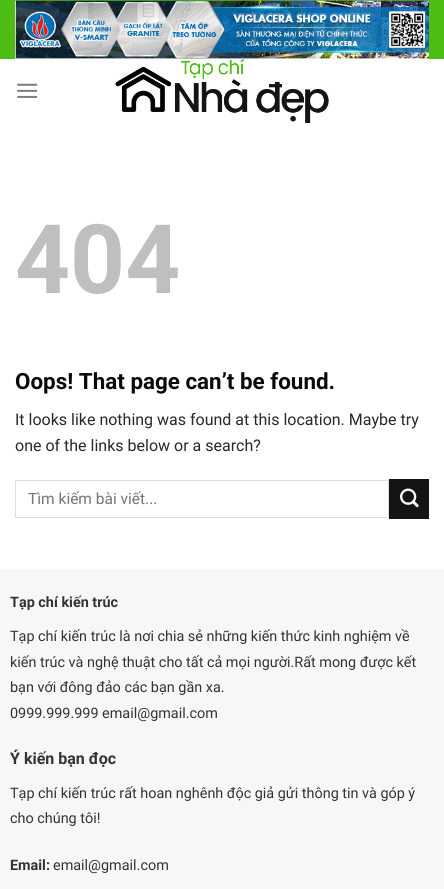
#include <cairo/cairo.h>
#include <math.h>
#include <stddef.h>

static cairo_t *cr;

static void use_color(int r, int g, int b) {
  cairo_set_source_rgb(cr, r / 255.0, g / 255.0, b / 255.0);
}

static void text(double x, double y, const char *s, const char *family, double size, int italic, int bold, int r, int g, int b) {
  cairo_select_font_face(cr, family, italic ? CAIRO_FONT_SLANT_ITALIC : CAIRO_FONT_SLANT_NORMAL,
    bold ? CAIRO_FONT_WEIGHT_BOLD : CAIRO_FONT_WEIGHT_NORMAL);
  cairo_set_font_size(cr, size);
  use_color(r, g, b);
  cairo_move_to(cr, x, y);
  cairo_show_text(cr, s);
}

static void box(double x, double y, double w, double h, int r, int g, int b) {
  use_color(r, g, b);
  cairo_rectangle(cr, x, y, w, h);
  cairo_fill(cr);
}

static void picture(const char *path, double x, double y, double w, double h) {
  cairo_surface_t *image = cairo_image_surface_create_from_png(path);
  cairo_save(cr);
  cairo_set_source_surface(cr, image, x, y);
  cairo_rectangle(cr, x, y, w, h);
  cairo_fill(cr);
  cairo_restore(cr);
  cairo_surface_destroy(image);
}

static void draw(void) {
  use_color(255, 255, 255);
  cairo_paint(cr);
  box(0, 0, 444, 59, 77, 188, 21);
  picture("img_01.png", 15, 0, 414, 59);
  picture("img_02.png", 17, 83, 21, 15);
  picture("img_03.png", 115, 59, 214, 65);
  cairo_rectangle(cr, 15.5, 480.5, 373, 37);
  use_color(221, 221, 221);
  cairo_set_line_width(cr, 1);
  cairo_stroke(cr);
  box(389, 479, 40, 40, 20, 20, 20);
  picture("img_04.png", 400, 488, 19, 20);
  box(0, 569, 444, 320, 247, 247, 247);
  text(15, 293, "404", "Roboto", 96, 0, 1, 191, 191, 191);
  text(15, 389, "Oops! That page can’t be found.", "Roboto", 22.4, 0, 1, 10, 10, 10);
  text(15, 425, "It looks like nothing was found at this location. Maybe try", "Roboto", 16, 0, 0, 40, 40, 40);
  text(15, 451, "one of the links below or a search?", "Roboto", 16, 0, 0, 40, 40, 40);
  text(28, 504, "Tìm kiếm bài viết...", "Roboto", 15.5, 0, 0, 117, 117, 117);
  text(10, 607, "Tạp chí kiến trúc", "Roboto", 14.4, 0, 1, 51, 51, 51);
  text(10, 641, "Tạp chí kiến trúc là nơi chia sẻ những kiến thức kinh nghiệm về", "Roboto", 14.4, 0, 0, 51, 51, 51);
  text(10, 667, "kiến trúc và nghệ thuật cho tất cả mọi người.Rất mong được kết", "Roboto", 14.4, 0, 0, 51, 51, 51);
  text(10, 692, "bạn với đông đảo các bạn gần xa.", "Roboto", 14.4, 0, 0, 51, 51, 51);
  text(10, 718, "0999.999.999 email@gmail.com", "Roboto", 14.4, 0, 0, 51, 51, 51);
  text(10, 764, "Ý kiến bạn đọc", "Roboto", 16, 0, 1, 51, 51, 51);
  text(10, 798, "Tạp chí kiến trúc rất hoan nghênh độc giả gửi thông tin và góp ý", "Roboto", 14.4, 0, 0, 51, 51, 51);
  text(10, 823, "cho chúng tôi!", "Roboto", 14.4, 0, 0, 51, 51, 51);
  text(10, 870, "Email:", "Roboto", 14.4, 0, 1, 51, 51, 51);
  text(53, 870, "email@gmail.com", "Roboto", 14.4, 0, 0, 51, 51, 51);
}

int main(void) {
  cairo_surface_t *surface = cairo_image_surface_create(CAIRO_FORMAT_RGB24, 444, 889);
  cr = cairo_create(surface);
  cairo_font_options_t *options = cairo_font_options_create();
  cairo_font_options_set_hint_metrics(options, CAIRO_HINT_METRICS_OFF);
  cairo_font_options_set_hint_style(options, CAIRO_HINT_STYLE_NONE);
  cairo_set_font_options(cr, options);
  cairo_set_miter_limit(cr, 4);
  draw();
  cairo_surface_write_to_png(surface, "out.png");
  cairo_font_options_destroy(options);
  cairo_destroy(cr);
  cairo_surface_destroy(surface);
  return 0;
}
